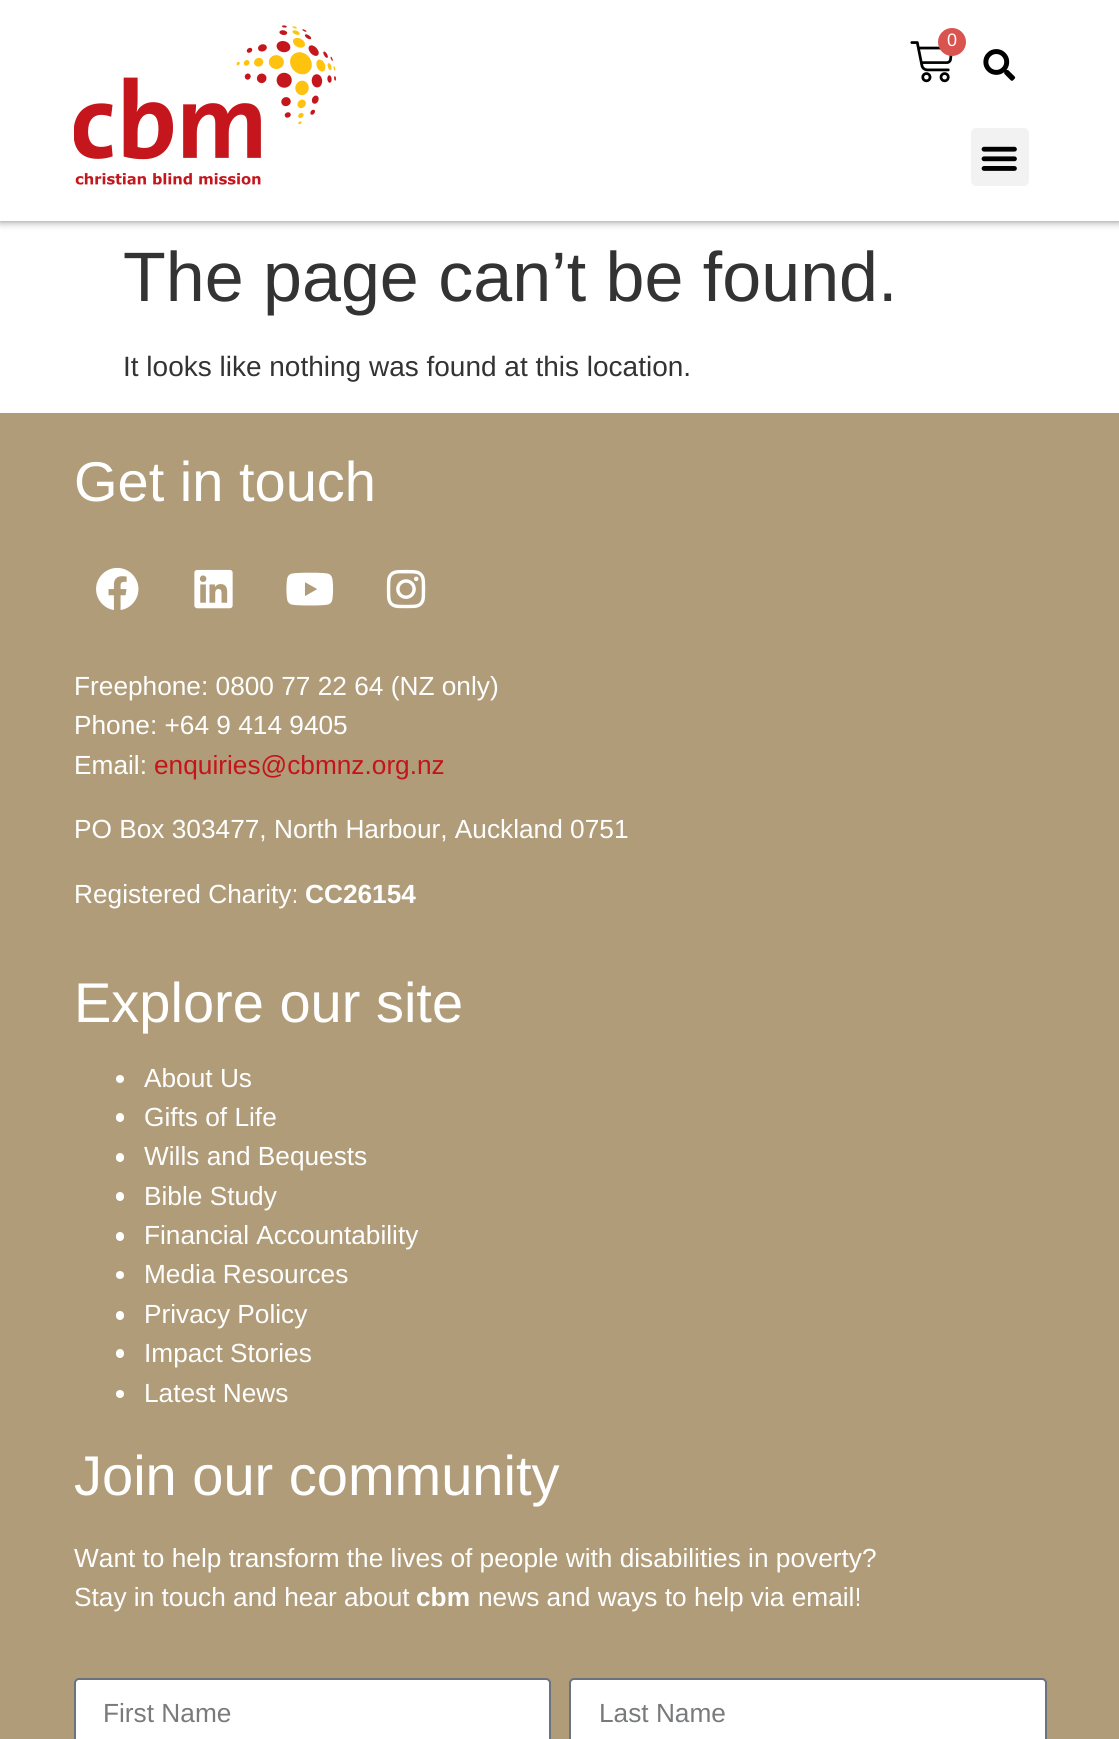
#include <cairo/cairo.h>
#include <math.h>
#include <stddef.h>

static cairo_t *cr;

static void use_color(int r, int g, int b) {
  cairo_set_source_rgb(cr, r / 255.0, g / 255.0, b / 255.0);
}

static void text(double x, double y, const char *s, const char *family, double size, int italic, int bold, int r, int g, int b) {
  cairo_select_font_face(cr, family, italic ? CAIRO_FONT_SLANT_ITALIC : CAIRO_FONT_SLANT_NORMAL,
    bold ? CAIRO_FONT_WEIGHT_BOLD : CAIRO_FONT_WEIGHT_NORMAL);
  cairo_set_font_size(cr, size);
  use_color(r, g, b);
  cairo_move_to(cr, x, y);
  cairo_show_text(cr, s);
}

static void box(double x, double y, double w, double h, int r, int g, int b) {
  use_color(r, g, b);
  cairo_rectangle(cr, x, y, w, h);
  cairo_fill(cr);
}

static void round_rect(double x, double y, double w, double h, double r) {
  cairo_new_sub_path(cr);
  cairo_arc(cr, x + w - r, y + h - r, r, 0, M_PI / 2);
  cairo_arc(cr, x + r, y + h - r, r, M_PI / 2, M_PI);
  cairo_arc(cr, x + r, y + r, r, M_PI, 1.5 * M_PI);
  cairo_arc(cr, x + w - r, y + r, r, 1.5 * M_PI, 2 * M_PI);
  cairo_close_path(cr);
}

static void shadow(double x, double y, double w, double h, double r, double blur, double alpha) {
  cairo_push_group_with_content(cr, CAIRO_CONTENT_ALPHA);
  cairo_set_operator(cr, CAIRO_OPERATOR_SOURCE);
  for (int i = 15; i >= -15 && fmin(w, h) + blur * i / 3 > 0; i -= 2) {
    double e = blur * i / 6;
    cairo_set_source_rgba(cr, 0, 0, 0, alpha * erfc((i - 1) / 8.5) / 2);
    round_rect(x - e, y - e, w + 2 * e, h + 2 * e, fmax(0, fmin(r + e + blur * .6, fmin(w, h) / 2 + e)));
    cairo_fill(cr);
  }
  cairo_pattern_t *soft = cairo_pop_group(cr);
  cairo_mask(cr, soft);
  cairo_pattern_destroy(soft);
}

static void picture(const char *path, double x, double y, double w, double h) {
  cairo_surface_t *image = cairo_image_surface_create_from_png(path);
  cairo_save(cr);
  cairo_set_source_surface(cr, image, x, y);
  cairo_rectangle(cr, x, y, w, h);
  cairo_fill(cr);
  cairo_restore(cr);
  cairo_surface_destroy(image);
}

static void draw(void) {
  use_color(255, 255, 255);
  cairo_paint(cr);
  use_color(0, 0, 0);
  shadow(0, 0, 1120, 221, 0, 4.5, 0.5);
  box(0, 0, 1119, 221, 255, 255, 255);
  picture("img_01.png", 74, 25, 262, 160);
  picture("img_02.png", 910, 41, 43, 42);
  use_color(217, 83, 79);
  cairo_arc(cr, 952, 42, 14, 0, 2 * M_PI);
  cairo_fill(cr);
  picture("img_03.png", 983, 49, 33, 32);
  use_color(242, 242, 242);
  round_rect(971, 128, 58, 58, 5);
  cairo_fill(cr);
  picture("img_04.png", 981, 146, 36, 25);
  box(0, 413, 1119, 1326, 176, 156, 120);
  picture("img_05.png", 96, 567, 43, 43);
  picture("img_06.png", 194, 569, 39, 40);
  picture("img_07.png", 286, 572, 48, 34);
  picture("img_08.png", 386, 569, 40, 40);
  use_color(255, 255, 255);
  cairo_arc(cr, 120, 1079, 4, 0, 2 * M_PI);
  cairo_fill(cr);
  round_rect(116, 1113, 8, 9, 4);
  cairo_fill(cr);
  round_rect(116, 1153, 8, 9, 4);
  cairo_fill(cr);
  round_rect(116, 1192, 8, 9, 4);
  cairo_fill(cr);
  round_rect(116, 1232, 8, 9, 4);
  cairo_fill(cr);
  cairo_arc(cr, 120, 1275, 4, 0, 2 * M_PI);
  cairo_fill(cr);
  round_rect(116, 1311, 8, 9, 4);
  cairo_fill(cr);
  round_rect(116, 1349, 8, 9, 4);
  cairo_fill(cr);
  cairo_arc(cr, 120, 1394, 4, 0, 2 * M_PI);
  cairo_fill(cr);
  round_rect(75, 1679, 475, 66, 4);
  cairo_fill_preserve(cr);
  use_color(105, 114, 125);
  cairo_stroke(cr);
  use_color(255, 255, 255);
  round_rect(570, 1679, 476, 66, 4);
  cairo_fill_preserve(cr);
  use_color(105, 114, 125);
  cairo_stroke(cr);
  text(947, 46, "0", "Liberation Sans", 18, 0, 0, 255, 255, 255);
  text(123, 301, "The page can’t be found.", "Liberation Sans", 70, 0, 0, 51, 51, 51);
  text(123, 376, "It looks like nothing was found at this location.", "Liberation Sans", 28, 0, 0, 51, 51, 51);
  text(74, 501, "Get in touch", "Liberation Sans", 56, 0, 0, 255, 255, 255);
  text(74, 695, "Freephone: 0800 77 22 64 (NZ only)", "Liberation Sans", 26.25, 0, 0, 255, 255, 255);
  text(74, 734, "Phone: +64 9 414 9405", "Liberation Sans", 26.25, 0, 0, 255, 255, 255);
  text(74, 774, "Email:", "Liberation Sans", 26.25, 0, 0, 255, 255, 255);
  text(154, 774, "enquiries@cbmnz.org.nz", "Liberation Sans", 26.25, 0, 0, 196, 20, 27);
  text(74, 838, "PO Box 303477, North Harbour, Auckland 0751", "Liberation Sans", 26.25, 0, 0, 255, 255, 255);
  text(74, 903, "Registered Charity:", "Liberation Sans", 26.25, 0, 0, 255, 255, 255);
  text(305, 903, "CC26154", "Liberation Sans", 26.25, 0, 1, 255, 255, 255);
  text(74, 1022, "Explore our site", "Liberation Sans", 56, 0, 0, 255, 255, 255);
  text(144, 1087, "About Us", "Liberation Sans", 26.25, 0, 0, 255, 255, 255);
  text(144, 1126, "Gifts of Life", "Liberation Sans", 26.25, 0, 0, 255, 255, 255);
  text(144, 1165, "Wills and Bequests", "Liberation Sans", 26.25, 0, 0, 255, 255, 255);
  text(144, 1205, "Bible Study", "Liberation Sans", 26.25, 0, 0, 255, 255, 255);
  text(144, 1244, "Financial Accountability", "Liberation Sans", 26.25, 0, 0, 255, 255, 255);
  text(144, 1283, "Media Resources", "Liberation Sans", 26.25, 0, 0, 255, 255, 255);
  text(144, 1323, "Privacy Policy", "Liberation Sans", 26.25, 0, 0, 255, 255, 255);
  text(144, 1362, "Impact Stories", "Liberation Sans", 26.25, 0, 0, 255, 255, 255);
  text(144, 1402, "Latest News", "Liberation Sans", 26.25, 0, 0, 255, 255, 255);
  text(74, 1495, "Join our community", "Liberation Sans", 56, 0, 0, 255, 255, 255);
  text(74, 1567, "Want to help transform the lives of people with disabilities in poverty?", "Liberation Sans", 26.25, 0, 0, 255, 255, 255);
  text(74, 1606, "Stay in touch and hear about", "Liberation Sans", 26.25, 0, 0, 255, 255, 255);
  text(416, 1606, "cbm", "Liberation Sans", 26.25, 0, 1, 255, 255, 255);
  text(478, 1606, "news and ways to help via email!", "Liberation Sans", 26.25, 0, 0, 255, 255, 255);
  text(103, 1722, "First Name", "Liberation Sans", 26.25, 0, 0, 121, 122, 124);
  text(599, 1722, "Last Name", "Liberation Sans", 26.25, 0, 0, 121, 122, 124);
}

int main(void) {
  cairo_surface_t *surface = cairo_image_surface_create(CAIRO_FORMAT_RGB24, 1119, 1739);
  cr = cairo_create(surface);
  cairo_font_options_t *options = cairo_font_options_create();
  cairo_font_options_set_hint_metrics(options, CAIRO_HINT_METRICS_OFF);
  cairo_font_options_set_hint_style(options, CAIRO_HINT_STYLE_NONE);
  cairo_set_font_options(cr, options);
  cairo_set_miter_limit(cr, 4);
  draw();
  cairo_surface_write_to_png(surface, "out.png");
  cairo_font_options_destroy(options);
  cairo_destroy(cr);
  cairo_surface_destroy(surface);
  return 0;
}
